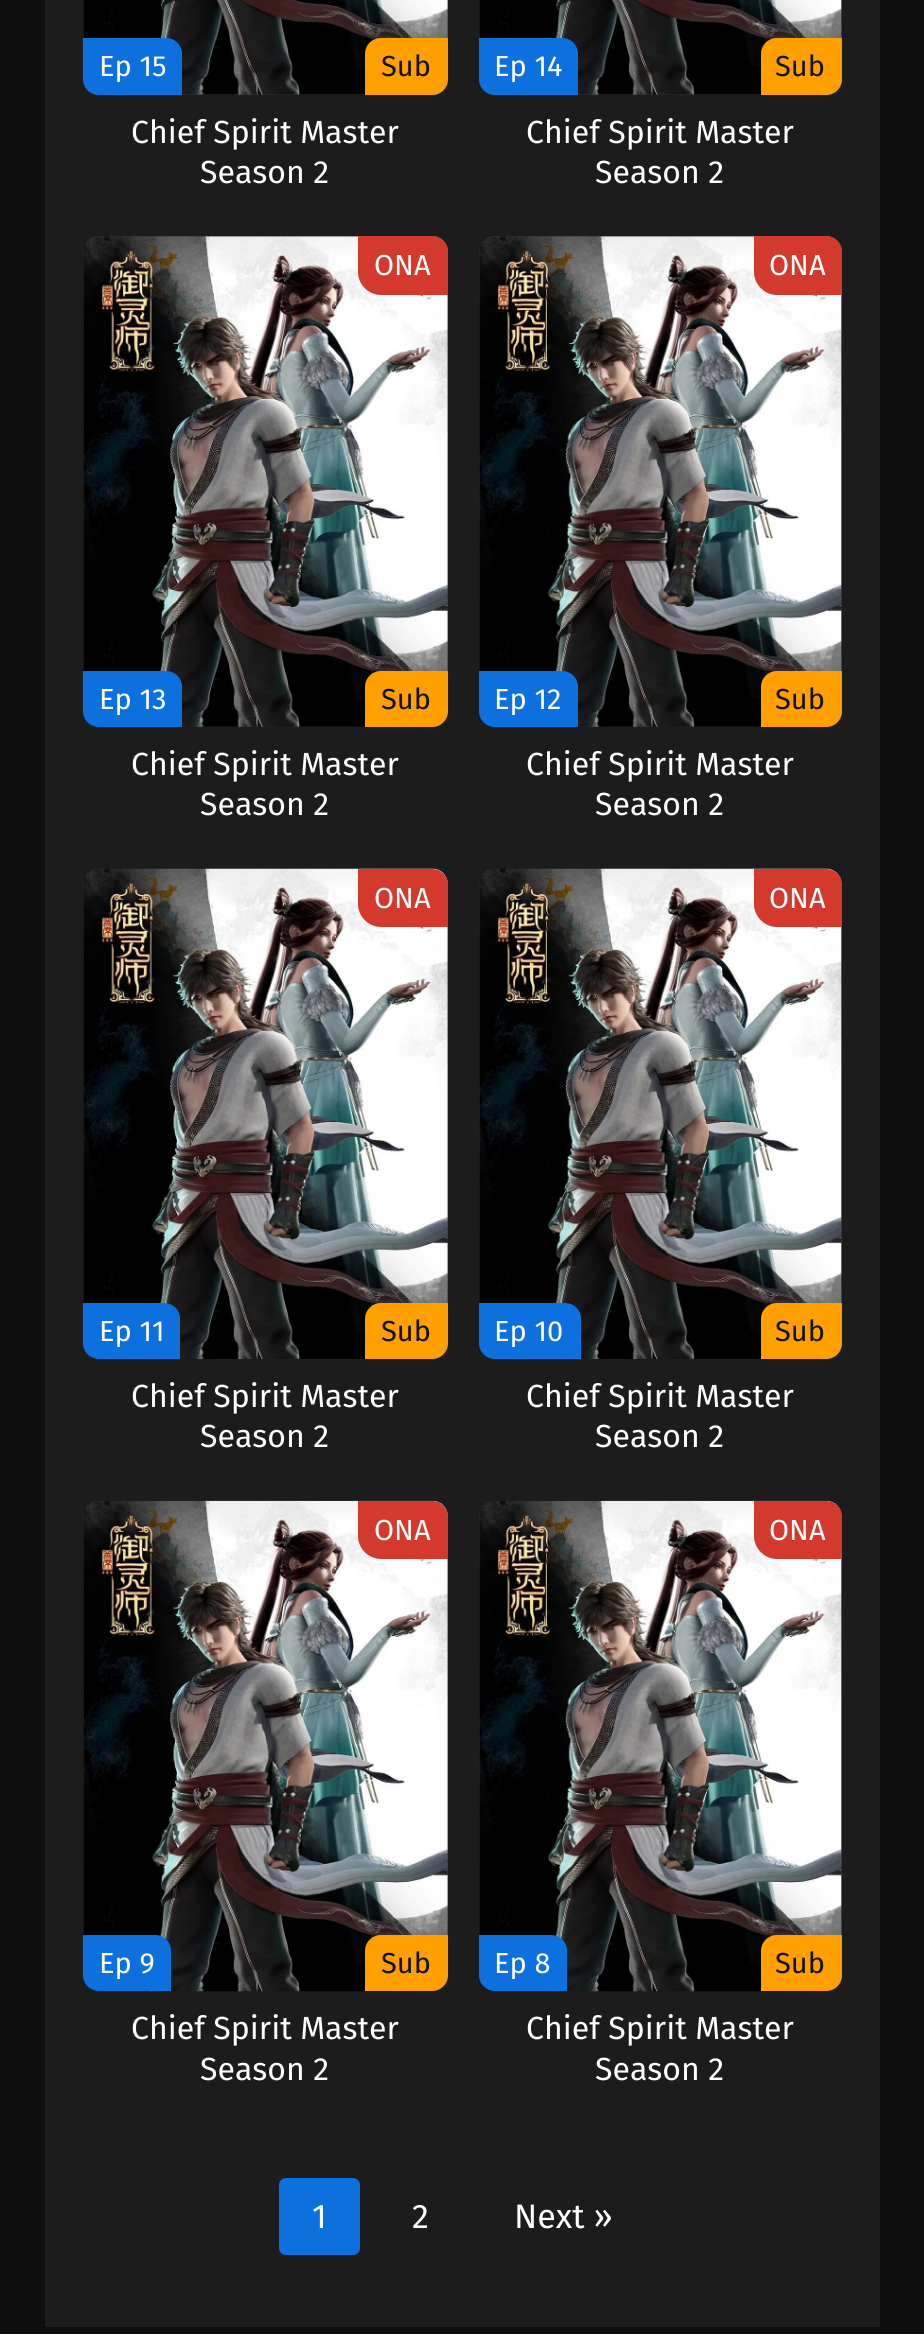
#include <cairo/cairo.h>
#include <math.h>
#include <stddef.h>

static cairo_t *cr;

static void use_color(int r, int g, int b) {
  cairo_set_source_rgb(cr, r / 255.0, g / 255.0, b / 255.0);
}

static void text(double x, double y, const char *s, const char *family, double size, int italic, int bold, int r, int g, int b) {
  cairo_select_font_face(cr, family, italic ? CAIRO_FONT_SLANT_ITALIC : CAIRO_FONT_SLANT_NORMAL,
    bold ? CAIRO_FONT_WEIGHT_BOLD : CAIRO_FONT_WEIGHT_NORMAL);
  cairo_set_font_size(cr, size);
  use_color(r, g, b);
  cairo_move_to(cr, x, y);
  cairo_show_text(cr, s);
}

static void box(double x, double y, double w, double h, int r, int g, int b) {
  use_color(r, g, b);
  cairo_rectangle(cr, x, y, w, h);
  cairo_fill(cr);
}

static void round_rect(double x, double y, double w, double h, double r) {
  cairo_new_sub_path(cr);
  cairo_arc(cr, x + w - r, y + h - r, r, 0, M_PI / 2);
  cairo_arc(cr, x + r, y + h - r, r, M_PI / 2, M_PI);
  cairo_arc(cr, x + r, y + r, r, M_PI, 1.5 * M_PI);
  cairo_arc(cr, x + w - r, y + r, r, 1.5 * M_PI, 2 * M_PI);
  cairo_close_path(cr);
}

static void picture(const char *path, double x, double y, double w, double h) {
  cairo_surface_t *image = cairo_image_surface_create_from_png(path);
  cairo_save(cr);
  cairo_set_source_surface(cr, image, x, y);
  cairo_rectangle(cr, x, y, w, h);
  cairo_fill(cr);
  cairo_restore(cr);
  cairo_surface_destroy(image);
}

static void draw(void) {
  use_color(14, 14, 14);
  cairo_paint(cr);
  box(45, 0, 835, 2327, 28, 28, 28);
  use_color(51, 51, 51);
  round_rect(83, -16, 365, 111, 16);
  cairo_fill(cr);
  picture("img_01.png", 83, 0, 365, 95);
  use_color(12, 112, 222);
  cairo_new_path(cr);
  cairo_move_to(cr, 83, 38);
  cairo_line_to(cr, 166, 38);
  cairo_curve_to(cr, 175, 38, 182, 45, 182, 54);
  cairo_line_to(cr, 182, 95);
  cairo_line_to(cr, 99, 95);
  cairo_curve_to(cr, 90, 95, 83, 88, 83, 79);
  cairo_close_path(cr);
  cairo_fill(cr);
  use_color(255, 160, 0);
  cairo_new_path(cr);
  cairo_move_to(cr, 381, 38);
  cairo_line_to(cr, 448, 38);
  cairo_line_to(cr, 448, 79);
  cairo_curve_to(cr, 448, 88, 441, 95, 432, 95);
  cairo_line_to(cr, 365, 95);
  cairo_line_to(cr, 365, 54);
  cairo_curve_to(cr, 365, 45, 372, 38, 381, 38);
  cairo_close_path(cr);
  cairo_fill(cr);
  use_color(51, 51, 51);
  round_rect(479, -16, 363, 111, 16);
  cairo_fill(cr);
  picture("img_02.png", 479, 0, 363, 95);
  use_color(12, 112, 222);
  cairo_new_path(cr);
  cairo_move_to(cr, 479, 38);
  cairo_line_to(cr, 562, 38);
  cairo_curve_to(cr, 571, 38, 578, 45, 578, 54);
  cairo_line_to(cr, 578, 95);
  cairo_line_to(cr, 495, 95);
  cairo_curve_to(cr, 486, 95, 479, 88, 479, 79);
  cairo_close_path(cr);
  cairo_fill(cr);
  use_color(255, 160, 0);
  cairo_new_path(cr);
  cairo_move_to(cr, 777, 38);
  cairo_line_to(cr, 842, 38);
  cairo_line_to(cr, 842, 79);
  cairo_curve_to(cr, 842, 88, 835, 95, 826, 95);
  cairo_line_to(cr, 761, 95);
  cairo_line_to(cr, 761, 54);
  cairo_curve_to(cr, 761, 45, 768, 38, 777, 38);
  cairo_close_path(cr);
  cairo_fill(cr);
  use_color(51, 51, 51);
  round_rect(83, 236, 365, 491, 16);
  cairo_fill(cr);
  picture("img_03.png", 83, 236, 365, 491);
  use_color(211, 57, 45);
  cairo_new_path(cr);
  cairo_move_to(cr, 358, 236);
  cairo_line_to(cr, 432, 236);
  cairo_curve_to(cr, 441, 236, 448, 243, 448, 252);
  cairo_line_to(cr, 448, 295);
  cairo_line_to(cr, 381, 295);
  cairo_curve_to(cr, 368.5, 295, 358, 284.5, 358, 272);
  cairo_close_path(cr);
  cairo_fill(cr);
  use_color(12, 112, 222);
  cairo_new_path(cr);
  cairo_move_to(cr, 83, 671);
  cairo_line_to(cr, 166, 671);
  cairo_curve_to(cr, 175, 671, 182, 678, 182, 687);
  cairo_line_to(cr, 182, 727);
  cairo_line_to(cr, 99, 727);
  cairo_curve_to(cr, 90, 727, 83, 720, 83, 711);
  cairo_close_path(cr);
  cairo_fill(cr);
  use_color(255, 160, 0);
  cairo_new_path(cr);
  cairo_move_to(cr, 381, 671);
  cairo_line_to(cr, 448, 671);
  cairo_line_to(cr, 448, 711);
  cairo_curve_to(cr, 448, 720, 441, 727, 432, 727);
  cairo_line_to(cr, 365, 727);
  cairo_line_to(cr, 365, 687);
  cairo_curve_to(cr, 365, 678, 372, 671, 381, 671);
  cairo_close_path(cr);
  cairo_fill(cr);
  use_color(51, 51, 51);
  round_rect(479, 236, 363, 491, 16);
  cairo_fill(cr);
  picture("img_04.png", 479, 236, 363, 491);
  use_color(211, 57, 45);
  cairo_new_path(cr);
  cairo_move_to(cr, 754, 236);
  cairo_line_to(cr, 826, 236);
  cairo_curve_to(cr, 835, 236, 842, 243, 842, 252);
  cairo_line_to(cr, 842, 295);
  cairo_line_to(cr, 777, 295);
  cairo_curve_to(cr, 764.5, 295, 754, 284.5, 754, 272);
  cairo_close_path(cr);
  cairo_fill(cr);
  use_color(12, 112, 222);
  cairo_new_path(cr);
  cairo_move_to(cr, 479, 671);
  cairo_line_to(cr, 562, 671);
  cairo_curve_to(cr, 571, 671, 578, 678, 578, 687);
  cairo_line_to(cr, 578, 727);
  cairo_line_to(cr, 495, 727);
  cairo_curve_to(cr, 486, 727, 479, 720, 479, 711);
  cairo_close_path(cr);
  cairo_fill(cr);
  use_color(255, 160, 0);
  cairo_new_path(cr);
  cairo_move_to(cr, 777, 671);
  cairo_line_to(cr, 842, 671);
  cairo_line_to(cr, 842, 711);
  cairo_curve_to(cr, 842, 720, 835, 727, 826, 727);
  cairo_line_to(cr, 761, 727);
  cairo_line_to(cr, 761, 687);
  cairo_curve_to(cr, 761, 678, 768, 671, 777, 671);
  cairo_close_path(cr);
  cairo_fill(cr);
  use_color(51, 51, 51);
  round_rect(83, 869, 365, 490, 16);
  cairo_fill(cr);
  picture("img_05.png", 83, 868, 365, 491);
  use_color(211, 57, 45);
  cairo_new_path(cr);
  cairo_move_to(cr, 358, 869);
  cairo_line_to(cr, 432, 869);
  cairo_curve_to(cr, 441, 869, 448, 876, 448, 885);
  cairo_line_to(cr, 448, 927);
  cairo_line_to(cr, 381, 927);
  cairo_curve_to(cr, 368.5, 927, 358, 916.5, 358, 904);
  cairo_close_path(cr);
  cairo_fill(cr);
  use_color(12, 112, 222);
  cairo_new_path(cr);
  cairo_move_to(cr, 83, 1303);
  cairo_line_to(cr, 164, 1303);
  cairo_curve_to(cr, 173, 1303, 180, 1310, 180, 1319);
  cairo_line_to(cr, 180, 1359);
  cairo_line_to(cr, 99, 1359);
  cairo_curve_to(cr, 90, 1359, 83, 1352, 83, 1343);
  cairo_close_path(cr);
  cairo_fill(cr);
  use_color(255, 160, 0);
  cairo_new_path(cr);
  cairo_move_to(cr, 381, 1303);
  cairo_line_to(cr, 448, 1303);
  cairo_line_to(cr, 448, 1343);
  cairo_curve_to(cr, 448, 1352, 441, 1359, 432, 1359);
  cairo_line_to(cr, 365, 1359);
  cairo_line_to(cr, 365, 1319);
  cairo_curve_to(cr, 365, 1310, 372, 1303, 381, 1303);
  cairo_close_path(cr);
  cairo_fill(cr);
  use_color(51, 51, 51);
  round_rect(479, 869, 363, 490, 16);
  cairo_fill(cr);
  picture("img_06.png", 479, 868, 363, 491);
  use_color(211, 57, 45);
  cairo_new_path(cr);
  cairo_move_to(cr, 754, 869);
  cairo_line_to(cr, 826, 869);
  cairo_curve_to(cr, 835, 869, 842, 876, 842, 885);
  cairo_line_to(cr, 842, 927);
  cairo_line_to(cr, 777, 927);
  cairo_curve_to(cr, 764.5, 927, 754, 916.5, 754, 904);
  cairo_close_path(cr);
  cairo_fill(cr);
  use_color(12, 112, 222);
  cairo_new_path(cr);
  cairo_move_to(cr, 479, 1303);
  cairo_line_to(cr, 565, 1303);
  cairo_curve_to(cr, 574, 1303, 581, 1310, 581, 1319);
  cairo_line_to(cr, 581, 1359);
  cairo_line_to(cr, 495, 1359);
  cairo_curve_to(cr, 486, 1359, 479, 1352, 479, 1343);
  cairo_close_path(cr);
  cairo_fill(cr);
  use_color(255, 160, 0);
  cairo_new_path(cr);
  cairo_move_to(cr, 777, 1303);
  cairo_line_to(cr, 842, 1303);
  cairo_line_to(cr, 842, 1343);
  cairo_curve_to(cr, 842, 1352, 835, 1359, 826, 1359);
  cairo_line_to(cr, 761, 1359);
  cairo_line_to(cr, 761, 1319);
  cairo_curve_to(cr, 761, 1310, 768, 1303, 777, 1303);
  cairo_close_path(cr);
  cairo_fill(cr);
  use_color(51, 51, 51);
  round_rect(83, 1501, 365, 490, 16);
  cairo_fill(cr);
  picture("img_07.png", 83, 1500, 365, 492);
  use_color(211, 57, 45);
  cairo_new_path(cr);
  cairo_move_to(cr, 358, 1501);
  cairo_line_to(cr, 432, 1501);
  cairo_curve_to(cr, 441, 1501, 448, 1508, 448, 1517);
  cairo_line_to(cr, 448, 1559);
  cairo_line_to(cr, 381, 1559);
  cairo_curve_to(cr, 368.5, 1559, 358, 1548.5, 358, 1536);
  cairo_close_path(cr);
  cairo_fill(cr);
  use_color(12, 112, 222);
  cairo_new_path(cr);
  cairo_move_to(cr, 83, 1935);
  cairo_line_to(cr, 155, 1935);
  cairo_curve_to(cr, 164, 1935, 171, 1942, 171, 1951);
  cairo_line_to(cr, 171, 1991);
  cairo_line_to(cr, 99, 1991);
  cairo_curve_to(cr, 90, 1991, 83, 1984, 83, 1975);
  cairo_close_path(cr);
  cairo_fill(cr);
  use_color(255, 160, 0);
  cairo_new_path(cr);
  cairo_move_to(cr, 381, 1935);
  cairo_line_to(cr, 448, 1935);
  cairo_line_to(cr, 448, 1975);
  cairo_curve_to(cr, 448, 1984, 441, 1991, 432, 1991);
  cairo_line_to(cr, 365, 1991);
  cairo_line_to(cr, 365, 1951);
  cairo_curve_to(cr, 365, 1942, 372, 1935, 381, 1935);
  cairo_close_path(cr);
  cairo_fill(cr);
  use_color(51, 51, 51);
  round_rect(479, 1501, 363, 490, 16);
  cairo_fill(cr);
  picture("img_08.png", 479, 1500, 363, 492);
  use_color(211, 57, 45);
  cairo_new_path(cr);
  cairo_move_to(cr, 754, 1501);
  cairo_line_to(cr, 826, 1501);
  cairo_curve_to(cr, 835, 1501, 842, 1508, 842, 1517);
  cairo_line_to(cr, 842, 1559);
  cairo_line_to(cr, 777, 1559);
  cairo_curve_to(cr, 764.5, 1559, 754, 1548.5, 754, 1536);
  cairo_close_path(cr);
  cairo_fill(cr);
  use_color(12, 112, 222);
  cairo_new_path(cr);
  cairo_move_to(cr, 479, 1935);
  cairo_line_to(cr, 551, 1935);
  cairo_curve_to(cr, 560, 1935, 567, 1942, 567, 1951);
  cairo_line_to(cr, 567, 1991);
  cairo_line_to(cr, 495, 1991);
  cairo_curve_to(cr, 486, 1991, 479, 1984, 479, 1975);
  cairo_close_path(cr);
  cairo_fill(cr);
  use_color(255, 160, 0);
  cairo_new_path(cr);
  cairo_move_to(cr, 777, 1935);
  cairo_line_to(cr, 842, 1935);
  cairo_line_to(cr, 842, 1975);
  cairo_curve_to(cr, 842, 1984, 835, 1991, 826, 1991);
  cairo_line_to(cr, 761, 1991);
  cairo_line_to(cr, 761, 1951);
  cairo_curve_to(cr, 761, 1942, 768, 1935, 777, 1935);
  cairo_close_path(cr);
  cairo_fill(cr);
  use_color(12, 112, 222);
  round_rect(279, 2178, 81, 77, 7);
  cairo_fill(cr);
  text(99, 76, "Ep 15", "Fira Sans", 29, 0, 0, 255, 255, 255);
  text(381, 76, "Sub", "Fira Sans", 29, 0, 0, 17, 17, 17);
  text(131, 143, "Chief Spirit Master", "Fira Sans", 32, 0, 0, 255, 255, 255);
  text(200, 183, "Season 2", "Fira Sans", 32, 0, 0, 255, 255, 255);
  text(494, 76, "Ep 14", "Fira Sans", 29, 0, 0, 255, 255, 255);
  text(775, 76, "Sub", "Fira Sans", 29, 0, 0, 17, 17, 17);
  text(526, 143, "Chief Spirit Master", "Fira Sans", 32, 0, 0, 255, 255, 255);
  text(595, 183, "Season 2", "Fira Sans", 32, 0, 0, 255, 255, 255);
  text(374, 275, "ONA", "Fira Sans", 29, 0, 0, 255, 255, 255);
  text(99, 709, "Ep 13", "Fira Sans", 29, 0, 0, 255, 255, 255);
  text(381, 709, "Sub", "Fira Sans", 29, 0, 0, 17, 17, 17);
  text(131, 775, "Chief Spirit Master", "Fira Sans", 32, 0, 0, 255, 255, 255);
  text(200, 815, "Season 2", "Fira Sans", 32, 0, 0, 255, 255, 255);
  text(769, 275, "ONA", "Fira Sans", 29, 0, 0, 255, 255, 255);
  text(494, 709, "Ep 12", "Fira Sans", 29, 0, 0, 255, 255, 255);
  text(775, 709, "Sub", "Fira Sans", 29, 0, 0, 17, 17, 17);
  text(526, 775, "Chief Spirit Master", "Fira Sans", 32, 0, 0, 255, 255, 255);
  text(595, 815, "Season 2", "Fira Sans", 32, 0, 0, 255, 255, 255);
  text(374, 908, "ONA", "Fira Sans", 29, 0, 0, 255, 255, 255);
  text(99, 1341, "Ep 11", "Fira Sans", 29, 0, 0, 255, 255, 255);
  text(381, 1341, "Sub", "Fira Sans", 29, 0, 0, 17, 17, 17);
  text(131, 1407, "Chief Spirit Master", "Fira Sans", 32, 0, 0, 255, 255, 255);
  text(200, 1447, "Season 2", "Fira Sans", 32, 0, 0, 255, 255, 255);
  text(769, 908, "ONA", "Fira Sans", 29, 0, 0, 255, 255, 255);
  text(494, 1341, "Ep 10", "Fira Sans", 29, 0, 0, 255, 255, 255);
  text(775, 1341, "Sub", "Fira Sans", 29, 0, 0, 17, 17, 17);
  text(526, 1407, "Chief Spirit Master", "Fira Sans", 32, 0, 0, 255, 255, 255);
  text(595, 1447, "Season 2", "Fira Sans", 32, 0, 0, 255, 255, 255);
  text(374, 1540, "ONA", "Fira Sans", 29, 0, 0, 255, 255, 255);
  text(99, 1973, "Ep 9", "Fira Sans", 29, 0, 0, 255, 255, 255);
  text(381, 1973, "Sub", "Fira Sans", 29, 0, 0, 17, 17, 17);
  text(131, 2039, "Chief Spirit Master", "Fira Sans", 32, 0, 0, 255, 255, 255);
  text(200, 2080, "Season 2", "Fira Sans", 32, 0, 0, 255, 255, 255);
  text(769, 1540, "ONA", "Fira Sans", 29, 0, 0, 255, 255, 255);
  text(494, 1973, "Ep 8", "Fira Sans", 29, 0, 0, 255, 255, 255);
  text(775, 1973, "Sub", "Fira Sans", 29, 0, 0, 17, 17, 17);
  text(526, 2039, "Chief Spirit Master", "Fira Sans", 32, 0, 0, 255, 255, 255);
  text(595, 2080, "Season 2", "Fira Sans", 32, 0, 0, 255, 255, 255);
  text(312, 2228, "1", "Fira Sans", 34, 0, 0, 255, 255, 255);
  text(412, 2228, "2", "Fira Sans", 34, 0, 0, 255, 255, 255);
  text(514, 2228, "Next »", "Fira Sans", 34, 0, 0, 255, 255, 255);
}

int main(void) {
  cairo_surface_t *surface = cairo_image_surface_create(CAIRO_FORMAT_RGB24, 924, 2334);
  cr = cairo_create(surface);
  cairo_font_options_t *options = cairo_font_options_create();
  cairo_font_options_set_hint_metrics(options, CAIRO_HINT_METRICS_OFF);
  cairo_font_options_set_hint_style(options, CAIRO_HINT_STYLE_NONE);
  cairo_set_font_options(cr, options);
  cairo_set_miter_limit(cr, 4);
  draw();
  cairo_surface_write_to_png(surface, "out.png");
  cairo_font_options_destroy(options);
  cairo_destroy(cr);
  cairo_surface_destroy(surface);
  return 0;
}
